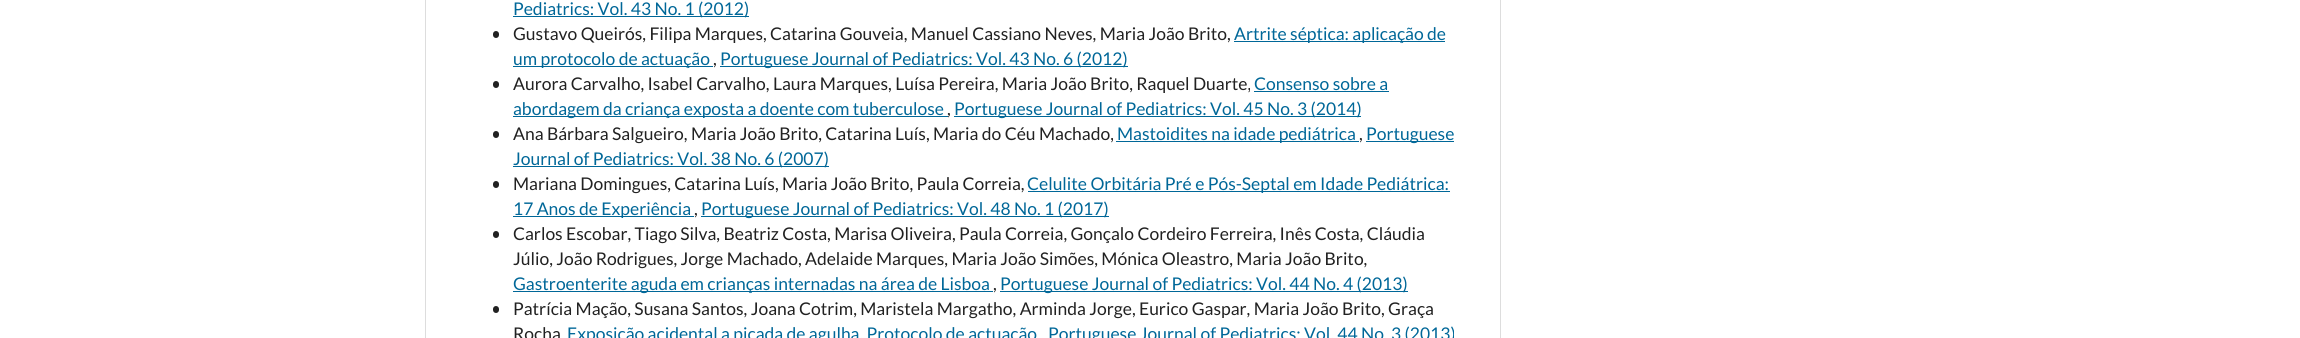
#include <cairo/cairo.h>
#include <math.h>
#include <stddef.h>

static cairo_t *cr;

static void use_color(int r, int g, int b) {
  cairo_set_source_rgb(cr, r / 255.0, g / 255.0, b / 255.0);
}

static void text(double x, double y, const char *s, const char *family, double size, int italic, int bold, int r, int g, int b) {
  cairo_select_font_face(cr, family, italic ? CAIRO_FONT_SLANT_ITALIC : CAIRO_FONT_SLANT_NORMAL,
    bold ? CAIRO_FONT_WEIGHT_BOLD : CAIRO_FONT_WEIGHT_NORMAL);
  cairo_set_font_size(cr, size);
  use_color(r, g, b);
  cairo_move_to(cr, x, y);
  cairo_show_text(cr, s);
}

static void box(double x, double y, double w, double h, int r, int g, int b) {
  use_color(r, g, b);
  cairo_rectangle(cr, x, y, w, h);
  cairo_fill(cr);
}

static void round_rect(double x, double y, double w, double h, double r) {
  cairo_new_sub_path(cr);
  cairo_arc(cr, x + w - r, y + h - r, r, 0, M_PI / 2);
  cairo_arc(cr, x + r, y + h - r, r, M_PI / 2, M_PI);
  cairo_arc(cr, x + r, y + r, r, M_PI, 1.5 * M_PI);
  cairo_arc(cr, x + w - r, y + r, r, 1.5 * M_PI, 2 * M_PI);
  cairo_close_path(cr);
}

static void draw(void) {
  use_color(255, 255, 255);
  cairo_paint(cr);
  box(425, 0, 1, 338, 221, 221, 221);
  box(513, 16, 236, 1, 0, 103, 152);
  use_color(33, 33, 33);
  round_rect(493, 31, 6, 7, 3);
  cairo_fill(cr);
  box(1234, 41, 211, 1, 0, 103, 152);
  box(513, 66, 200, 1, 0, 103, 152);
  box(720, 66, 408, 1, 0, 103, 152);
  use_color(33, 33, 33);
  round_rect(493, 81, 6, 7, 3);
  cairo_fill(cr);
  box(1254, 91, 135, 1, 0, 103, 152);
  box(513, 116, 435, 1, 0, 103, 152);
  box(954, 116, 407, 1, 0, 103, 152);
  use_color(33, 33, 33);
  round_rect(493, 131, 6, 7, 3);
  cairo_fill(cr);
  box(1116, 141, 243, 1, 0, 103, 152);
  box(1366, 141, 88, 1, 0, 103, 152);
  box(513, 166, 316, 1, 0, 103, 152);
  use_color(33, 33, 33);
  round_rect(493, 181, 6, 7, 3);
  cairo_fill(cr);
  box(1028, 191, 422, 1, 0, 103, 152);
  box(513, 216, 181, 1, 0, 103, 152);
  box(701, 216, 408, 1, 0, 103, 152);
  use_color(33, 33, 33);
  round_rect(493, 231, 6, 7, 3);
  cairo_fill(cr);
  box(513, 291, 480, 1, 0, 103, 152);
  box(1000, 291, 408, 1, 0, 103, 152);
  use_color(33, 33, 33);
  round_rect(493, 306, 6, 7, 3);
  cairo_fill(cr);
  box(1500, 0, 1, 338, 221, 221, 221);
  text(513, 15, "Pediatrics: Vol. 43 No. 1 (2012)", "Lato", 17.5, 0, 0, 0, 103, 152);
  text(513, 40, "Gustavo Queirós, Filipa Marques, Catarina Gouveia, Manuel Cassiano Neves, Maria João Brito,", "Lato", 17.5, 0, 0, 33, 33, 33);
  text(1234, 40, "Artrite séptica: aplicação de", "Lato", 17.5, 0, 0, 0, 103, 152);
  text(513, 65, "um protocolo de actuação", "Lato", 17.5, 0, 0, 0, 103, 152);
  text(713, 65, ",", "Lato", 17.5, 0, 0, 33, 33, 33);
  text(720, 65, "Portuguese Journal of Pediatrics: Vol. 43 No. 6 (2012)", "Lato", 17.5, 0, 0, 0, 103, 152);
  text(513, 90, "Aurora Carvalho, Isabel Carvalho, Laura Marques, Luísa Pereira, Maria João Brito, Raquel Duarte,", "Lato", 17.5, 0, 0, 33, 33, 33);
  text(1254, 90, "Consenso sobre a", "Lato", 17.5, 0, 0, 0, 103, 152);
  text(513, 115, "abordagem da criança exposta a doente com tuberculose", "Lato", 17.5, 0, 0, 0, 103, 152);
  text(947, 115, ",", "Lato", 17.5, 0, 0, 33, 33, 33);
  text(954, 115, "Portuguese Journal of Pediatrics: Vol. 45 No. 3 (2014)", "Lato", 17.5, 0, 0, 0, 103, 152);
  text(513, 140, "Ana Bárbara Salgueiro, Maria João Brito, Catarina Luís, Maria do Céu Machado,", "Lato", 17.5, 0, 0, 33, 33, 33);
  text(1117, 140, "Mastoidites na idade pediátrica", "Lato", 17.5, 0, 0, 0, 103, 152);
  text(1366, 140, "Portuguese", "Lato", 17.5, 0, 0, 0, 103, 152);
  text(1359, 140, ",", "Lato", 17.5, 0, 0, 33, 33, 33);
  text(513, 165, "Journal of Pediatrics: Vol. 38 No. 6 (2007)", "Lato", 17.5, 0, 0, 0, 103, 152);
  text(513, 190, "Mariana Domingues, Catarina Luís, Maria João Brito, Paula Correia,", "Lato", 17.5, 0, 0, 33, 33, 33);
  text(1027, 190, "Celulite Orbitária Pré e Pós-Septal em Idade Pediátrica:", "Lato", 17.5, 0, 0, 0, 103, 152);
  text(513, 215, "17 Anos de Experiência", "Lato", 17.5, 0, 0, 0, 103, 152);
  text(694, 215, ",", "Lato", 17.5, 0, 0, 33, 33, 33);
  text(701, 215, "Portuguese Journal of Pediatrics: Vol. 48 No. 1 (2017)", "Lato", 17.5, 0, 0, 0, 103, 152);
  text(513, 240, "Carlos Escobar, Tiago Silva, Beatriz Costa, Marisa Oliveira, Paula Correia, Gonçalo Cordeiro Ferreira, Inês Costa, Cláudia", "Lato", 17.5, 0, 0, 33, 33, 33);
  text(513, 265, "Júlio, João Rodrigues, Jorge Machado, Adelaide Marques, Maria João Simões, Mónica Oleastro, Maria João Brito,", "Lato", 17.5, 0, 0, 33, 33, 33);
  text(513, 290, "Gastroenterite aguda em crianças internadas na área de Lisboa", "Lato", 17.5, 0, 0, 0, 103, 152);
  text(993, 290, ",", "Lato", 17.5, 0, 0, 33, 33, 33);
  text(1000, 290, "Portuguese Journal of Pediatrics: Vol. 44 No. 4 (2013)", "Lato", 17.5, 0, 0, 0, 103, 152);
  text(513, 315, "Patrícia Mação, Susana Santos, Joana Cotrim, Maristela Margatho, Arminda Jorge, Eurico Gaspar, Maria João Brito, Graça", "Lato", 17.5, 0, 0, 33, 33, 33);
  text(513, 340, "Rocha", "Lato", 17.5, 0, 0, 33, 33, 33);
  text(567, 340, "Exposição acidental a picada de agulha. Protocolo de actuação", "Lato", 17.5, 0, 0, 0, 103, 152);
  text(1048, 340, "Portuguese Journal of Pediatrics: Vol. 44 No. 3 (2013)", "Lato", 17.5, 0, 0, 0, 103, 152);
}

int main(void) {
  cairo_surface_t *surface = cairo_image_surface_create(CAIRO_FORMAT_RGB24, 2300, 338);
  cr = cairo_create(surface);
  cairo_font_options_t *options = cairo_font_options_create();
  cairo_font_options_set_hint_metrics(options, CAIRO_HINT_METRICS_OFF);
  cairo_font_options_set_hint_style(options, CAIRO_HINT_STYLE_NONE);
  cairo_set_font_options(cr, options);
  cairo_set_miter_limit(cr, 4);
  draw();
  cairo_surface_write_to_png(surface, "out.png");
  cairo_font_options_destroy(options);
  cairo_destroy(cr);
  cairo_surface_destroy(surface);
  return 0;
}
